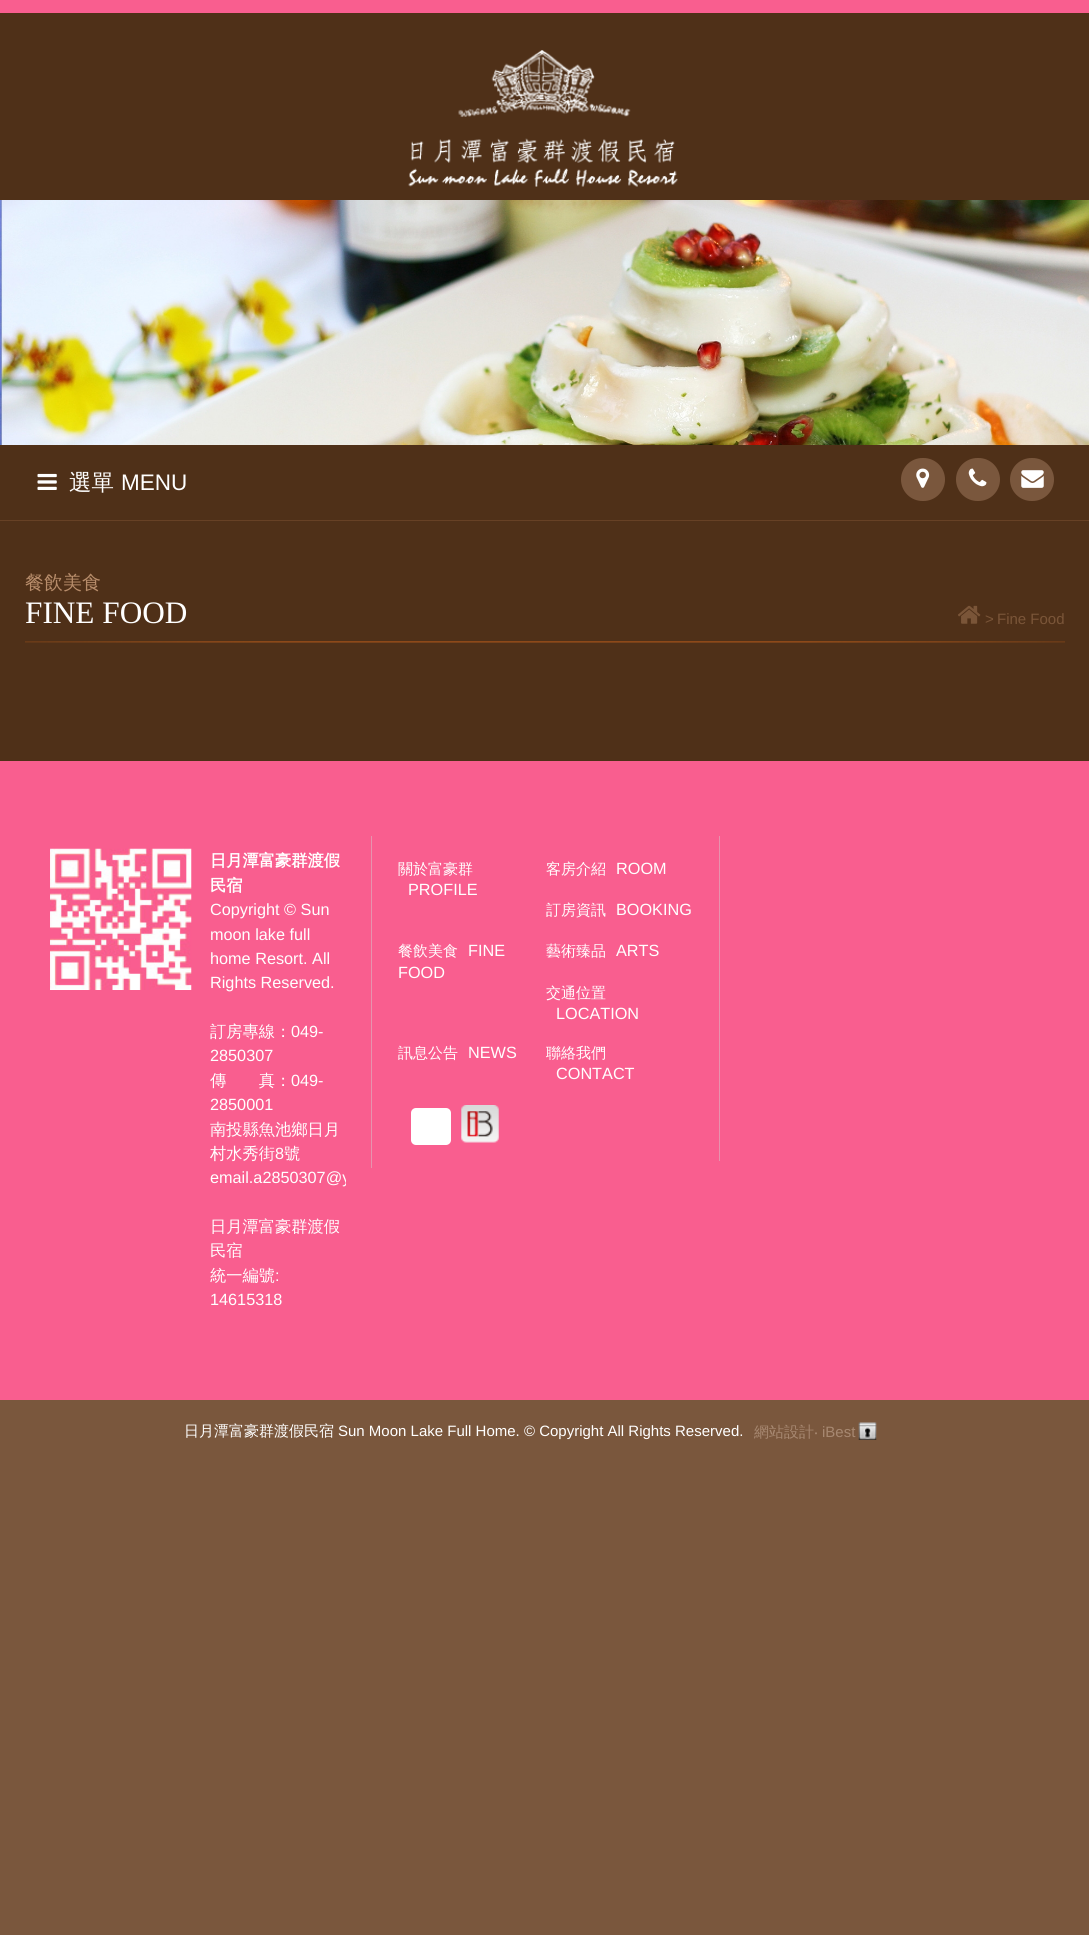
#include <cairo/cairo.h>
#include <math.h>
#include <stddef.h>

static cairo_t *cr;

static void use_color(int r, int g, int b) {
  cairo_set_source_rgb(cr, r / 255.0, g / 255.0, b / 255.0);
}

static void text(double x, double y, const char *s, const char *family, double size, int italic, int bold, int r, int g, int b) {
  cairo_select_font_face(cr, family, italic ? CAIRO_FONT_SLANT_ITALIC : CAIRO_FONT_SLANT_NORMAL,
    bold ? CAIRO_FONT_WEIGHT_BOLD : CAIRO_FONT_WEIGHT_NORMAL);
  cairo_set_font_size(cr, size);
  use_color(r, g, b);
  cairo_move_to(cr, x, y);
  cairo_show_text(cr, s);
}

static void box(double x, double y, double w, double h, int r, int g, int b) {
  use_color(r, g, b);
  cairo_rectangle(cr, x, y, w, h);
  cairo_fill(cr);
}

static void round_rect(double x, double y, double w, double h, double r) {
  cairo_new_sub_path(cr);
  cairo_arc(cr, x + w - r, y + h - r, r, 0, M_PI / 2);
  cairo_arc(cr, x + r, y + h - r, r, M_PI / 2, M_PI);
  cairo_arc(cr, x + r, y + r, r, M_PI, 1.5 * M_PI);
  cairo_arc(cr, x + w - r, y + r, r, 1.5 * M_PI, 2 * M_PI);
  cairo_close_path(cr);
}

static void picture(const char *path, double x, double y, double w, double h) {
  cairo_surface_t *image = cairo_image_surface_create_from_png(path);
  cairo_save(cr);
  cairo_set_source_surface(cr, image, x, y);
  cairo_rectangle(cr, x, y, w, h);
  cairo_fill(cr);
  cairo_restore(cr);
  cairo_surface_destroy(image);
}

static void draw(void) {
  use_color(122, 87, 61);
  cairo_paint(cr);
  box(0, 13, 1089, 187, 79, 48, 24);
  box(0, 0, 1089, 13, 249, 94, 143);
  picture("img_01.png", 408, 50, 270, 137);
  picture("img_02.png", 0, 200, 1089, 245);
  box(0, 445, 1089, 75, 79, 48, 24);
  box(0, 520, 1089, 1, 103, 65, 37);
  picture("img_03.png", 37, 473, 20, 17);
  use_color(122, 87, 61);
  round_rect(901, 458, 44, 43, 21.5);
  cairo_fill(cr);
  picture("img_04.png", 916, 468, 14, 20);
  round_rect(956, 458, 44, 43, 21.5);
  cairo_fill(cr);
  picture("img_05.png", 968, 468, 19, 19);
  round_rect(1010, 458, 44, 43, 21.5);
  cairo_fill(cr);
  picture("img_06.png", 1021, 470, 23, 18);
  box(0, 521, 1089, 240, 79, 48, 24);
  picture("img_07.png", 25, 641, 1040, 2);
  picture("img_08.png", 958, 605, 23, 19);
  box(0, 761, 1089, 639, 249, 94, 143);
  picture("img_09.png", 50, 848, 142, 142);
  box(371, 836, 1, 332, 231, 147, 174);
  use_color(255, 255, 255);
  round_rect(411, 1108, 40, 37, 5);
  cairo_fill(cr);
  picture("img_10.png", 461, 1105, 38, 38);
  box(719, 836, 1, 325, 231, 147, 174);
  picture("img_11.png", 858, 1422, 19, 18);
  text(69, 490, "選單", "WenQuanYi Zen Hei Medium", 22.5, 0, 0, 255, 255, 255);
  text(121, 490, "MENU", "Liberation Sans", 22.5, 0, 0, 255, 255, 255);
  text(25, 589, "餐飲美食", "WenQuanYi Zen Hei Medium", 19, 0, 0, 183, 140, 106);
  text(25, 623, "FINE FOOD", "Liberation Serif", 31.25, 0, 0, 255, 255, 255);
  text(985, 624, ">", "Liberation Sans", 15, 0, 0, 122, 85, 56);
  text(997, 624, "Fine Food", "Liberation Sans", 15, 0, 0, 122, 85, 56);
  text(210, 866, "日月潭富豪群渡假", "WenQuanYi Zen Hei", 16.25, 0, 1, 255, 255, 255);
  text(210, 891, "民宿", "WenQuanYi Zen Hei", 16.25, 0, 1, 255, 255, 255);
  text(210, 915, "Copyright © Sun", "Liberation Sans", 16.25, 0, 0, 255, 255, 255);
  text(210, 940, "moon lake full", "Liberation Sans", 16.25, 0, 0, 255, 255, 255);
  text(210, 964, "home Resort. All", "Liberation Sans", 16.25, 0, 0, 255, 255, 255);
  text(210, 988, "Rights Reserved.", "Liberation Sans", 16.25, 0, 0, 255, 255, 255);
  text(210, 1037, "訂房專線：", "WenQuanYi Zen Hei Medium", 16.25, 0, 0, 255, 255, 255);
  text(291, 1037, "049-", "Liberation Sans", 16.25, 0, 0, 255, 255, 255);
  text(210, 1061, "2850307", "Liberation Sans", 16.25, 0, 0, 255, 255, 255);
  text(210, 1086, "傳　　真：", "WenQuanYi Zen Hei Medium", 16.25, 0, 0, 255, 255, 255);
  text(291, 1086, "049-", "Liberation Sans", 16.25, 0, 0, 255, 255, 255);
  text(210, 1110, "2850001", "Liberation Sans", 16.25, 0, 0, 255, 255, 255);
  text(210, 1135, "南投縣魚池鄉日月", "WenQuanYi Zen Hei Medium", 16.25, 0, 0, 255, 255, 255);
  text(210, 1159, "村水秀街", "WenQuanYi Zen Hei Medium", 16.25, 0, 0, 255, 255, 255);
  text(275, 1159, "8", "Liberation Sans", 16.25, 0, 0, 255, 255, 255);
  text(284, 1159, "號", "WenQuanYi Zen Hei Medium", 16.25, 0, 0, 255, 255, 255);
  cairo_save(cr);
  cairo_rectangle(cr, 210, 849, 136, 464);
  cairo_clip(cr);
  text(210, 1183, "email.a2850307@y", "Liberation Sans", 16.25, 0, 0, 255, 255, 255);
  cairo_restore(cr);
  text(210, 1232, "日月潭富豪群渡假", "WenQuanYi Zen Hei Medium", 16.25, 0, 0, 255, 255, 255);
  text(210, 1256, "民宿", "WenQuanYi Zen Hei Medium", 16.25, 0, 0, 255, 255, 255);
  text(210, 1281, "統一編號", "WenQuanYi Zen Hei Medium", 16.25, 0, 0, 255, 255, 255);
  text(275, 1281, ":", "Liberation Sans", 16.25, 0, 0, 255, 255, 255);
  text(210, 1305, "14615318", "Liberation Sans", 16.25, 0, 0, 255, 255, 255);
  text(398, 874, "關於富豪群", "WenQuanYi Zen Hei Medium", 15, 0, 0, 255, 255, 255);
  text(408, 895, "PROFILE", "Liberation Sans", 16.25, 0, 0, 255, 255, 255);
  text(546, 874, "客房介紹", "WenQuanYi Zen Hei Medium", 15, 0, 0, 255, 255, 255);
  text(616, 874, "ROOM", "Liberation Sans", 16.25, 0, 0, 255, 255, 255);
  text(546, 915, "訂房資訊", "WenQuanYi Zen Hei Medium", 15, 0, 0, 255, 255, 255);
  text(616, 915, "BOOKING", "Liberation Sans", 16.25, 0, 0, 255, 255, 255);
  text(398, 956, "餐飲美食", "WenQuanYi Zen Hei Medium", 15, 0, 0, 255, 255, 255);
  text(468, 956, "FINE", "Liberation Sans", 16.25, 0, 0, 255, 255, 255);
  text(398, 978, "FOOD", "Liberation Sans", 16.25, 0, 0, 255, 255, 255);
  text(546, 956, "藝術臻品", "WenQuanYi Zen Hei Medium", 15, 0, 0, 255, 255, 255);
  text(616, 956, "ARTS", "Liberation Sans", 16.25, 0, 0, 255, 255, 255);
  text(546, 998, "交通位置", "WenQuanYi Zen Hei Medium", 15, 0, 0, 255, 255, 255);
  text(556, 1019, "LOCATION", "Liberation Sans", 16.25, 0, 0, 255, 255, 255);
  text(398, 1058, "訊息公告", "WenQuanYi Zen Hei Medium", 15, 0, 0, 255, 255, 255);
  text(468, 1058, "NEWS", "Liberation Sans", 16.25, 0, 0, 255, 255, 255);
  text(546, 1058, "聯絡我們", "WenQuanYi Zen Hei Medium", 15, 0, 0, 255, 255, 255);
  text(556, 1079, "CONTACT", "Liberation Sans", 16.25, 0, 0, 255, 255, 255);
  text(184, 1436, "日月潭富豪群渡假民宿", "WenQuanYi Zen Hei Medium", 15, 0, 0, 255, 255, 255);
  text(338, 1436, "Sun Moon Lake Full Home. © Copyright All Rights Reserved.", "Liberation Sans", 15, 0, 0, 255, 255, 255);
  text(754, 1437, "網站設計", "WenQuanYi Zen Hei Medium", 15, 0, 0, 167, 136, 113);
  text(814, 1437, "‧", "Noto Sans", 15, 0, 0, 167, 136, 113);
  text(822, 1437, "iBest", "Liberation Sans", 15, 0, 0, 167, 136, 113);
}

int main(void) {
  cairo_surface_t *surface = cairo_image_surface_create(CAIRO_FORMAT_RGB24, 1089, 1935);
  cr = cairo_create(surface);
  cairo_font_options_t *options = cairo_font_options_create();
  cairo_font_options_set_hint_metrics(options, CAIRO_HINT_METRICS_OFF);
  cairo_font_options_set_hint_style(options, CAIRO_HINT_STYLE_NONE);
  cairo_set_font_options(cr, options);
  cairo_set_miter_limit(cr, 4);
  draw();
  cairo_surface_write_to_png(surface, "out.png");
  cairo_font_options_destroy(options);
  cairo_destroy(cr);
  cairo_surface_destroy(surface);
  return 0;
}
